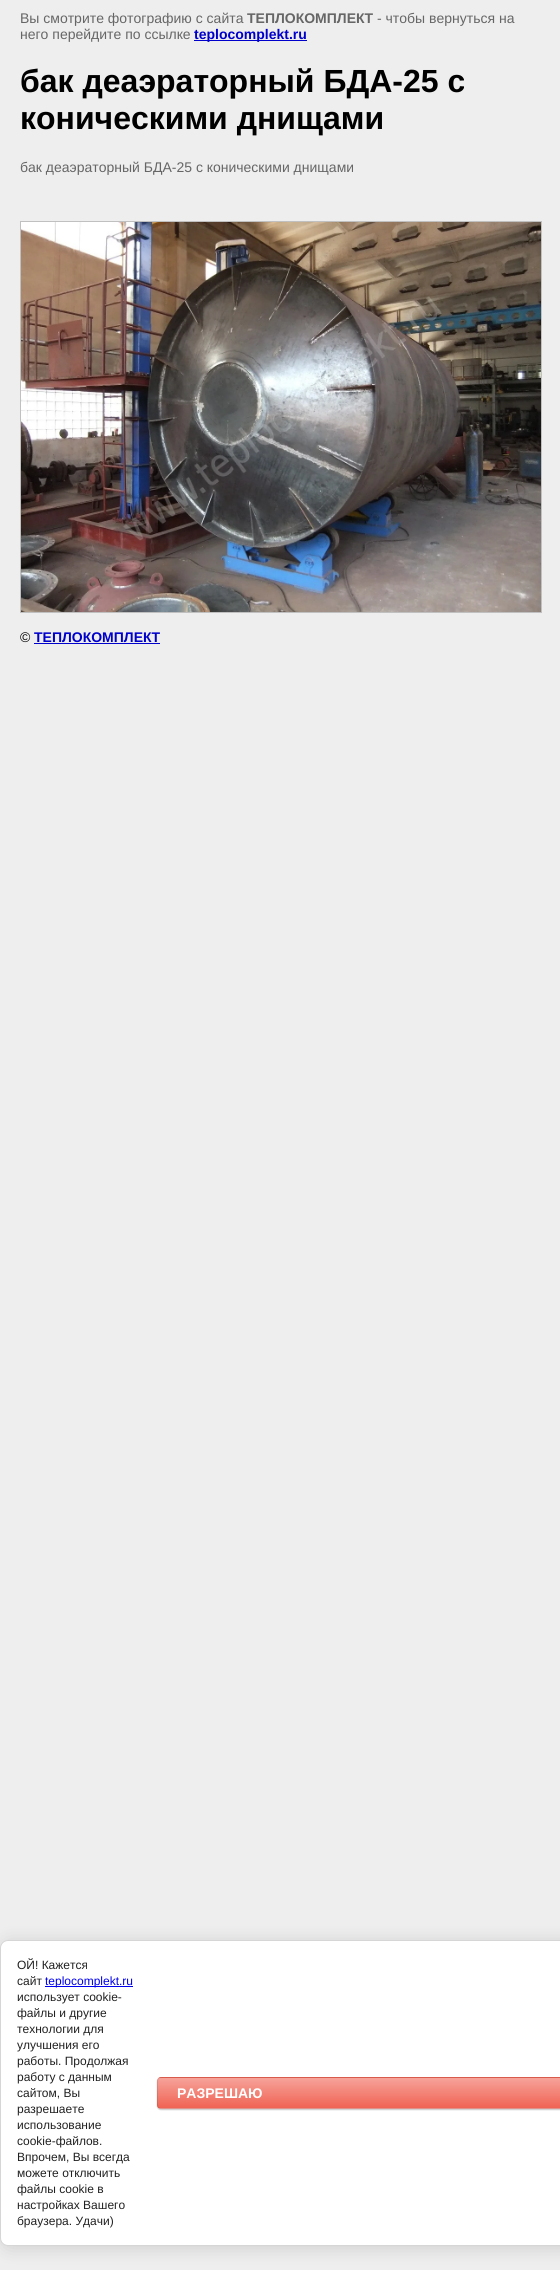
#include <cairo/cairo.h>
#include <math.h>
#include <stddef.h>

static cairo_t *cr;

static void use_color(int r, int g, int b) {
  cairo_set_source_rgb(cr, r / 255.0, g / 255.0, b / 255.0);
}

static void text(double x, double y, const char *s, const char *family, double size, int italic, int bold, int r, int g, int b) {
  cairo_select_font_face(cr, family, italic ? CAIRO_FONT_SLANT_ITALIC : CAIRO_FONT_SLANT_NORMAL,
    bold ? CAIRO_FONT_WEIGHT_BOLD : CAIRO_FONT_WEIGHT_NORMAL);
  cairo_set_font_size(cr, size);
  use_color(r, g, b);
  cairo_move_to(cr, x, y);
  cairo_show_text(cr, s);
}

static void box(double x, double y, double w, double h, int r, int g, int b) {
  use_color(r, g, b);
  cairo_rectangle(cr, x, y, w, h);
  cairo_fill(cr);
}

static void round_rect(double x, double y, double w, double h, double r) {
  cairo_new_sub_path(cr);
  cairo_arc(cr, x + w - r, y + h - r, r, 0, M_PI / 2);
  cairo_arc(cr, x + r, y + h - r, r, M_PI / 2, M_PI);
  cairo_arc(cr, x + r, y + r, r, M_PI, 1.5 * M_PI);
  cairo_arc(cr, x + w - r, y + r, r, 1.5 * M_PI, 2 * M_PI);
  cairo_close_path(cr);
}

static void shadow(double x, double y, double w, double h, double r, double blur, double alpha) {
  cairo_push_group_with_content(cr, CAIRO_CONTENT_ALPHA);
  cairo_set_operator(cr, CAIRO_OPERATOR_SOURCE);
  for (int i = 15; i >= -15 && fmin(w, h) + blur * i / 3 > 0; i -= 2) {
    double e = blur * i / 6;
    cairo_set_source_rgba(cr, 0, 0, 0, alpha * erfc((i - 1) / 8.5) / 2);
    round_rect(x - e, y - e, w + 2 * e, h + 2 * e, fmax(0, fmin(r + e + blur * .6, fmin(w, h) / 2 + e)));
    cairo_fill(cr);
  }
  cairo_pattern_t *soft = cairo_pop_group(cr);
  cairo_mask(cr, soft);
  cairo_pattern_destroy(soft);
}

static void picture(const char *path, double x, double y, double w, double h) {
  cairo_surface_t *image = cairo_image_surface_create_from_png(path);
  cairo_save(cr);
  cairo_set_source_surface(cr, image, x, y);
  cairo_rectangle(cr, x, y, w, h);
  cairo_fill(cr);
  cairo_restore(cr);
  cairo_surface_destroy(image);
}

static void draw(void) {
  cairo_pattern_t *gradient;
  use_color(238, 238, 238);
  cairo_paint(cr);
  box(194, 40, 113, 1, 0, 0, 204);
  cairo_rectangle(cr, 20.5, 221.5, 521, 391);
  use_color(192, 192, 192);
  cairo_set_line_width(cr, 1);
  cairo_stroke(cr);
  picture("img_01.png", 21, 222, 520, 390);
  box(34, 643, 126, 1, 0, 0, 204);
  use_color(0, 0, 0);
  shadow(2, 1942, 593, 306, 8, 9, 0.14);
  use_color(255, 255, 255);
  round_rect(0.5, 1940.5, 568, 305, 7.5);
  cairo_fill_preserve(cr);
  use_color(214, 214, 214);
  cairo_stroke(cr);
  box(45, 1986, 88, 1, 0, 0, 238);
  use_color(0, 0, 0);
  shadow(157, 2078, 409, 32, 4, 0.5, 0.2);
  cairo_save(cr);
  round_rect(157, 2077, 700, 32, 4);
  cairo_clip(cr);
  gradient = cairo_pattern_create_linear(507, 2048, 507, 2078);
  cairo_pattern_add_color_stop_rgba(gradient, 0, 0.965, 0.639, 0.604, 1);
  cairo_pattern_add_color_stop_rgba(gradient, 1, 0.941, 0.388, 0.329, 1);
  cairo_set_source(cr, gradient);
  cairo_pattern_destroy(gradient);
  cairo_rectangle(cr, 157, 2077, 403, 1);
  cairo_fill(cr);
  gradient = cairo_pattern_create_linear(507, 2078, 507, 2108);
  cairo_pattern_add_color_stop_rgba(gradient, 0, 0.965, 0.639, 0.604, 1);
  cairo_pattern_add_color_stop_rgba(gradient, 1, 0.941, 0.388, 0.329, 1);
  cairo_set_source(cr, gradient);
  cairo_pattern_destroy(gradient);
  cairo_rectangle(cr, 157, 2078, 403, 30);
  cairo_fill(cr);
  gradient = cairo_pattern_create_linear(507, 2108, 507, 2138);
  cairo_pattern_add_color_stop_rgba(gradient, 0, 0.965, 0.639, 0.604, 1);
  cairo_pattern_add_color_stop_rgba(gradient, 1, 0.941, 0.388, 0.329, 1);
  cairo_set_source(cr, gradient);
  cairo_pattern_destroy(gradient);
  cairo_rectangle(cr, 157, 2108, 403, 1);
  cairo_fill(cr);
  cairo_restore(cr);
  round_rect(157.5, 2077.5, 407, 31, 3.5);
  cairo_set_source_rgba(cr, 0, 0, 0, 0.1);
  cairo_stroke(cr);
  text(20, 23, "Вы смотрите фотографию с сайта", "Liberation Sans", 14, 0, 0, 102, 102, 102);
  text(247, 23, "ТЕПЛОКОМПЛЕКТ", "Liberation Sans", 14, 0, 1, 102, 102, 102);
  text(377, 23, "- чтобы вернуться на", "Liberation Sans", 14, 0, 0, 102, 102, 102);
  text(20, 39, "него перейдите по ссылке", "Liberation Sans", 14, 0, 0, 102, 102, 102);
  text(194, 39, "teplocomplekt.ru", "Liberation Sans", 14, 0, 1, 0, 0, 204);
  text(20, 92, "бак деаэраторный БДА-25 с", "Liberation Sans", 32, 0, 1, 0, 0, 0);
  text(20, 129, "коническими днищами", "Liberation Sans", 32, 0, 1, 0, 0, 0);
  text(20, 172, "бак деаэраторный БДА-25 с коническими днищами", "Liberation Sans", 14, 0, 0, 102, 102, 102);
  text(20, 642, "©", "Liberation Sans", 14, 0, 0, 0, 0, 0);
  text(34, 642, "ТЕПЛОКОМПЛЕКТ", "Liberation Sans", 14, 0, 1, 0, 0, 204);
  text(17, 1969, "ОЙ! Кажется", "Liberation Sans", 12, 0, 0, 33, 33, 33);
  text(17, 1985, "сайт", "Liberation Sans", 12, 0, 0, 33, 33, 33);
  text(45, 1985, "teplocomplekt.ru", "Liberation Sans", 12, 0, 0, 0, 0, 238);
  text(17, 2001, "использует cookie-", "Liberation Sans", 12, 0, 0, 33, 33, 33);
  text(17, 2017, "файлы и другие", "Liberation Sans", 12, 0, 0, 33, 33, 33);
  text(17, 2033, "технологии для", "Liberation Sans", 12, 0, 0, 33, 33, 33);
  text(17, 2049, "улучшения его", "Liberation Sans", 12, 0, 0, 33, 33, 33);
  text(17, 2065, "работы. Продолжая", "Liberation Sans", 12, 0, 0, 33, 33, 33);
  text(17, 2081, "работу с данным", "Liberation Sans", 12, 0, 0, 33, 33, 33);
  text(17, 2097, "сайтом, Вы", "Liberation Sans", 12, 0, 0, 33, 33, 33);
  text(17, 2113, "разрешаете", "Liberation Sans", 12, 0, 0, 33, 33, 33);
  text(17, 2129, "использование", "Liberation Sans", 12, 0, 0, 33, 33, 33);
  text(17, 2145, "cookie-файлов.", "Liberation Sans", 12, 0, 0, 33, 33, 33);
  text(17, 2161, "Впрочем, Вы всегда", "Liberation Sans", 12, 0, 0, 33, 33, 33);
  text(17, 2177, "можете отключить", "Liberation Sans", 12, 0, 0, 33, 33, 33);
  text(17, 2193, "файлы cookie в", "Liberation Sans", 12, 0, 0, 33, 33, 33);
  text(17, 2209, "настройках Вашего", "Liberation Sans", 12, 0, 0, 33, 33, 33);
  text(17, 2225, "браузера. Удачи)", "Liberation Sans", 12, 0, 0, 33, 33, 33);
  text(177, 2098, "РАЗРЕШАЮ", "Liberation Sans", 14, 0, 1, 255, 255, 255);
}

int main(void) {
  cairo_surface_t *surface = cairo_image_surface_create(CAIRO_FORMAT_RGB24, 560, 2270);
  cr = cairo_create(surface);
  cairo_font_options_t *options = cairo_font_options_create();
  cairo_font_options_set_hint_metrics(options, CAIRO_HINT_METRICS_OFF);
  cairo_font_options_set_hint_style(options, CAIRO_HINT_STYLE_NONE);
  cairo_set_font_options(cr, options);
  cairo_set_miter_limit(cr, 4);
  draw();
  cairo_surface_write_to_png(surface, "out.png");
  cairo_font_options_destroy(options);
  cairo_destroy(cr);
  cairo_surface_destroy(surface);
  return 0;
}
